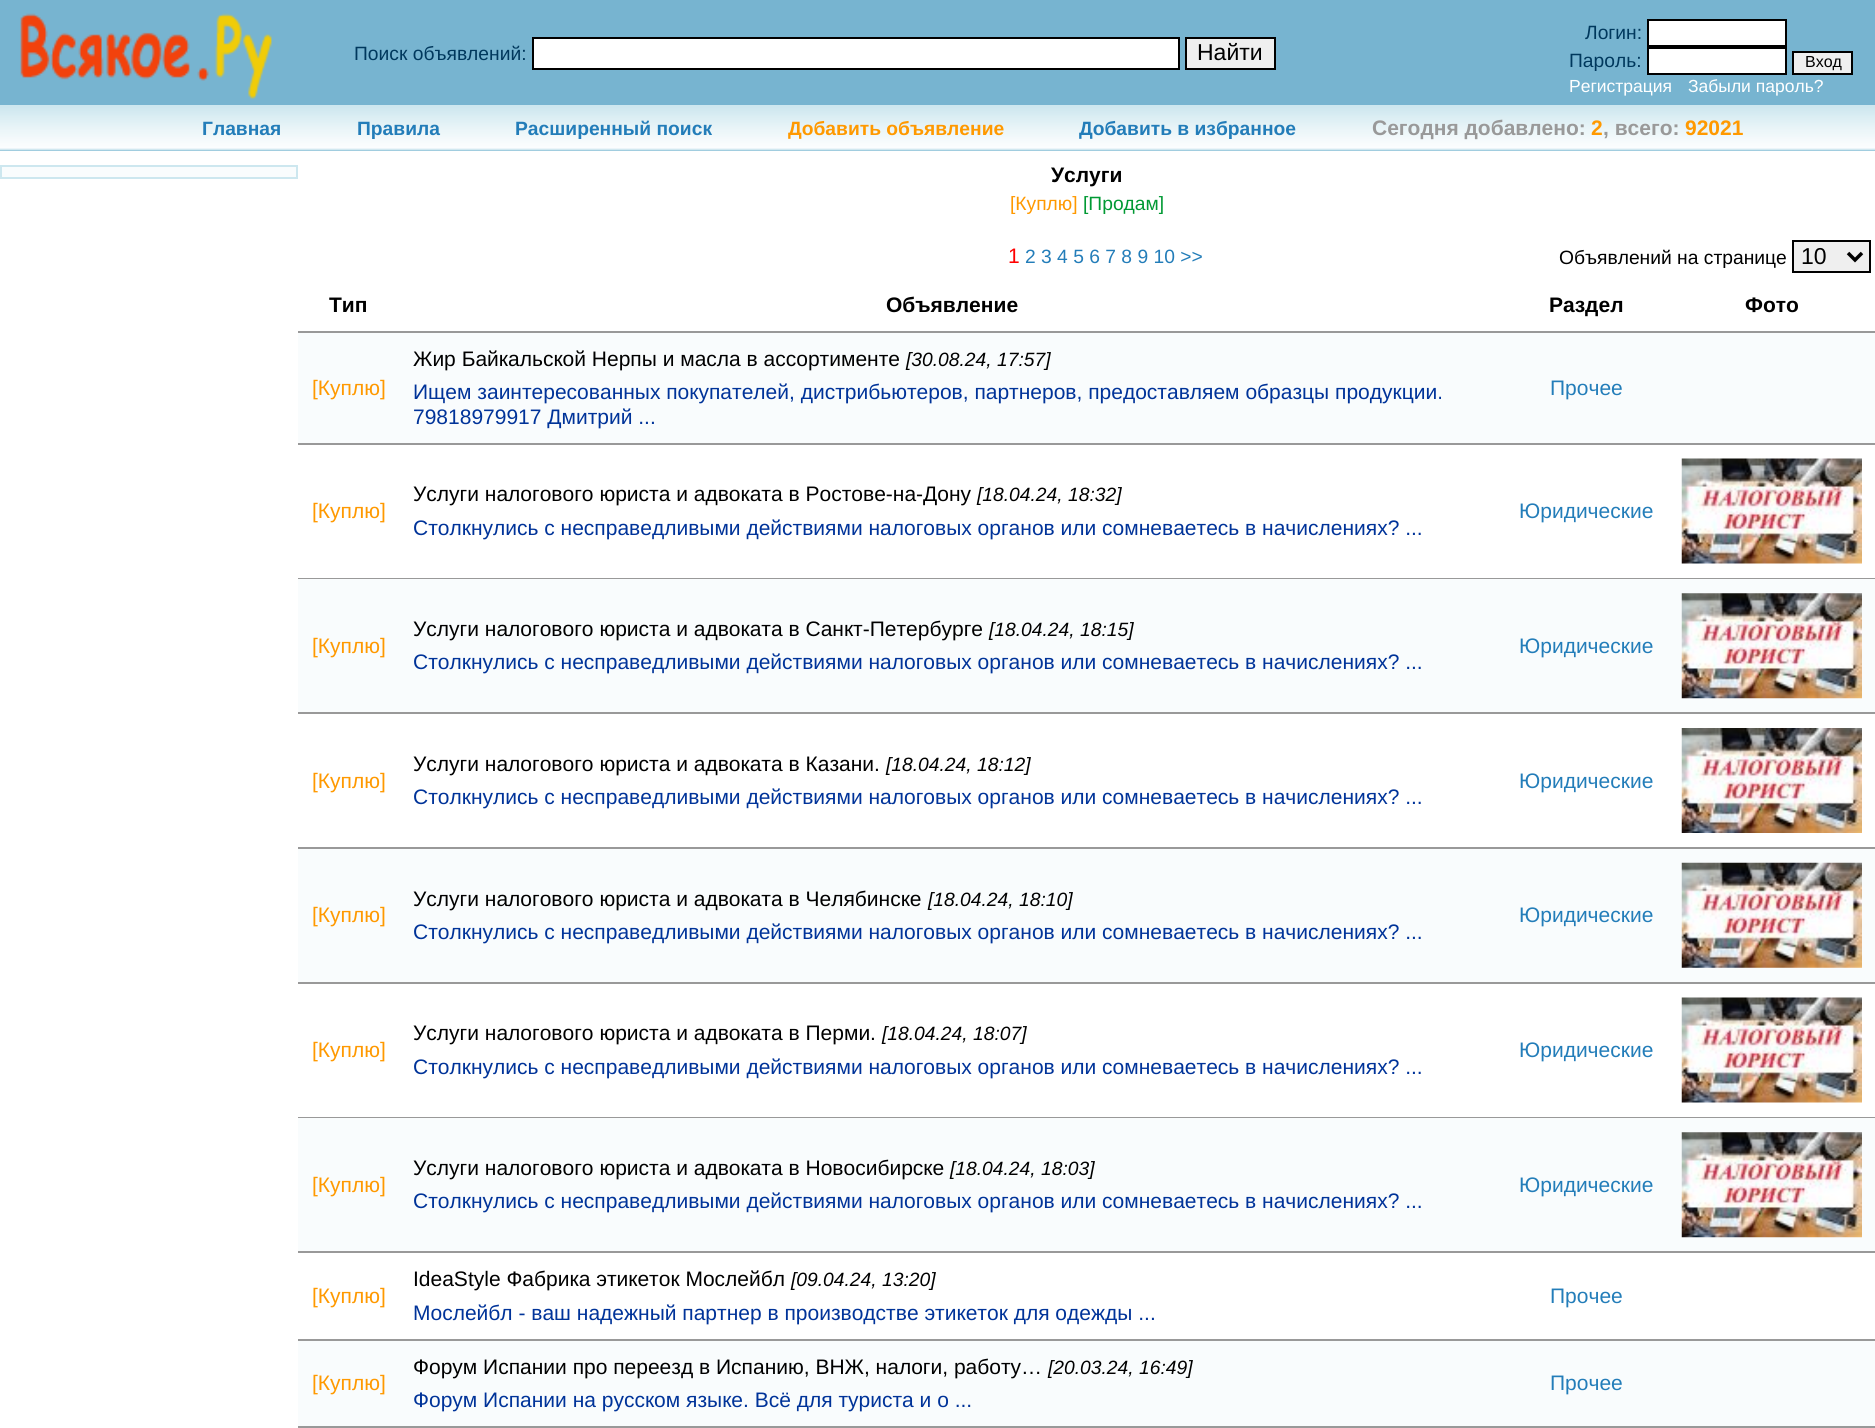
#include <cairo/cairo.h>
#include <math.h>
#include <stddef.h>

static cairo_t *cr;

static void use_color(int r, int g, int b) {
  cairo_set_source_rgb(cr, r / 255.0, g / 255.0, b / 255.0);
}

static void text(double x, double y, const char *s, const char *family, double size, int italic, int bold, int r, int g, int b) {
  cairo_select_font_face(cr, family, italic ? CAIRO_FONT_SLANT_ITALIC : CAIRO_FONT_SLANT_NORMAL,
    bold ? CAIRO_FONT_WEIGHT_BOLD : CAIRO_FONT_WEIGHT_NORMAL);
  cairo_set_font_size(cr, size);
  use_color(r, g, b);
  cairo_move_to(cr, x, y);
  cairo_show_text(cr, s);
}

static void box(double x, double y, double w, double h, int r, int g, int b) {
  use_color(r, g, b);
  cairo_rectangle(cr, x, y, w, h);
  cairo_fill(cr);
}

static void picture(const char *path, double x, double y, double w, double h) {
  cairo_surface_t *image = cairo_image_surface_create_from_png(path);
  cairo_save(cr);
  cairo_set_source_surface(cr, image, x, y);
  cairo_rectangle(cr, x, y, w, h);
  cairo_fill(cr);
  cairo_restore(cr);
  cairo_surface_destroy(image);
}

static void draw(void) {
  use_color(255, 255, 255);
  cairo_paint(cr);
  box(0, 0, 1875, 151, 119, 180, 208);
  picture("img_01.png", 20, 13, 252, 86);
  use_color(255, 255, 255);
  cairo_rectangle(cr, 533, 38, 646, 31);
  cairo_fill_preserve(cr);
  use_color(0, 0, 0);
  cairo_stroke(cr);
  use_color(239, 239, 239);
  cairo_rectangle(cr, 1186, 38, 89, 31);
  cairo_fill_preserve(cr);
  use_color(0, 0, 0);
  cairo_stroke(cr);
  use_color(255, 255, 255);
  cairo_rectangle(cr, 1648, 20, 138, 26);
  cairo_fill_preserve(cr);
  use_color(0, 0, 0);
  cairo_stroke(cr);
  use_color(255, 255, 255);
  cairo_rectangle(cr, 1648, 48, 138, 26);
  cairo_fill_preserve(cr);
  use_color(0, 0, 0);
  cairo_stroke(cr);
  use_color(239, 239, 239);
  cairo_rectangle(cr, 1793, 52, 59, 22);
  cairo_fill_preserve(cr);
  use_color(0, 0, 0);
  cairo_stroke(cr);
  picture("img_02.png", 0, 105, 1875, 46);
  use_color(249, 252, 253);
  cairo_rectangle(cr, 1, 166, 296, 12);
  cairo_fill_preserve(cr);
  use_color(205, 231, 239);
  cairo_stroke(cr);
  use_color(239, 239, 239);
  cairo_rectangle(cr, 1793, 241, 77, 31);
  cairo_fill_preserve(cr);
  use_color(0, 0, 0);
  cairo_stroke(cr);
  cairo_new_path(cr);
  cairo_move_to(cr, 1848, 253);
  cairo_line_to(cr, 1855, 260);
  cairo_line_to(cr, 1862, 253);
  cairo_set_line_width(cr, 3.5);
  cairo_stroke(cr);
  box(298, 331, 1577, 2, 153, 153, 153);
  box(298, 333, 1577, 110, 249, 252, 253);
  box(298, 443, 1577, 2, 153, 153, 153);
  box(298, 578, 1577, 1, 153, 153, 153);
  picture("img_03.png", 1681, 458, 181, 106);
  box(298, 579, 1577, 133, 249, 252, 253);
  box(298, 712, 1577, 2, 153, 153, 153);
  picture("img_04.png", 1681, 593, 181, 106);
  box(298, 847, 1577, 2, 153, 153, 153);
  picture("img_05.png", 1681, 728, 181, 105);
  box(298, 849, 1577, 133, 249, 252, 253);
  box(298, 982, 1577, 2, 153, 153, 153);
  picture("img_06.png", 1681, 862, 181, 106);
  box(298, 1117, 1577, 1, 153, 153, 153);
  picture("img_03.png", 1681, 997, 181, 106);
  box(298, 1118, 1577, 133, 249, 252, 253);
  box(298, 1251, 1577, 2, 153, 153, 153);
  picture("img_04.png", 1681, 1132, 181, 106);
  box(298, 1339, 1577, 2, 153, 153, 153);
  box(298, 1341, 1577, 85, 249, 252, 253);
  box(298, 1426, 1577, 2, 153, 153, 153);
  text(354, 60, "Поиск объявлений:", "Liberation Sans", 19.25, 0, 0, 0, 56, 93);
  text(1197, 60, "Найти", "Liberation Sans", 23, 0, 0, 0, 0, 0);
  text(1585, 39, "Логин:", "Liberation Sans", 19.25, 0, 0, 0, 56, 93);
  text(1569, 67, "Пароль:", "Liberation Sans", 19.25, 0, 0, 0, 56, 93);
  text(1805, 67, "Вход", "Liberation Sans", 16, 0, 0, 0, 0, 0);
  text(1569, 92, "Регистрация", "Liberation Sans", 17.5, 0, 0, 255, 255, 255);
  text(1688, 92, "Забыли пароль?", "Liberation Sans", 17.5, 0, 0, 255, 255, 255);
  text(202, 135, "Главная", "Liberation Sans", 19.25, 0, 1, 35, 125, 185);
  text(357, 135, "Правила", "Liberation Sans", 19.25, 0, 1, 35, 125, 185);
  text(515, 135, "Расширенный поиск", "Liberation Sans", 19.25, 0, 1, 35, 125, 185);
  text(788, 135, "Добавить объявление", "Liberation Sans", 19.25, 0, 1, 255, 153, 0);
  text(1079, 135, "Добавить в избранное", "Liberation Sans", 19.25, 0, 1, 35, 125, 185);
  text(1372, 135, "Сегодня добавлено:", "Liberation Sans", 21, 0, 1, 153, 153, 153);
  text(1591, 135, "2", "Liberation Sans", 21, 0, 1, 255, 153, 0);
  text(1603, 135, ", всего:", "Liberation Sans", 21, 0, 1, 153, 153, 153);
  text(1685, 135, "92021", "Liberation Sans", 21, 0, 1, 255, 153, 0);
  text(1051, 182, "Услуги", "Liberation Sans", 21, 0, 1, 0, 0, 0);
  text(1010, 210, "[Куплю]", "Liberation Sans", 19.25, 0, 0, 255, 153, 0);
  text(1083, 210, "[Продам]", "Liberation Sans", 19.25, 0, 0, 0, 153, 51);
  text(1008, 263, "1", "Liberation Sans", 21, 0, 0, 255, 0, 0);
  text(1025, 263, "2 3 4 5 6 7 8 9 10 >>", "Liberation Sans", 19.25, 0, 0, 35, 125, 185);
  text(1559, 264, "Объявлений на странице", "Liberation Sans", 19.25, 0, 0, 0, 0, 0);
  text(1801, 264, "10", "Liberation Sans", 23, 0, 0, 0, 0, 0);
  text(329, 312, "Тип", "Liberation Sans", 21, 0, 1, 0, 0, 0);
  text(886, 312, "Объявление", "Liberation Sans", 21, 0, 1, 0, 0, 0);
  text(1549, 312, "Раздел", "Liberation Sans", 21, 0, 1, 0, 0, 0);
  text(1745, 312, "Фото", "Liberation Sans", 21, 0, 1, 0, 0, 0);
  text(312, 395, "[Куплю]", "Liberation Sans", 21, 0, 0, 255, 153, 0);
  text(413, 366, "Жир Байкальской Нерпы и масла в ассортименте", "Liberation Sans", 21, 0, 0, 0, 0, 0);
  text(906, 366, "[30.08.24, 17:57]", "Liberation Sans", 19.25, 1, 0, 0, 0, 0);
  text(413, 399, "Ищем заинтересованных покупателей, дистрибьютеров, партнеров, предоставляем образцы продукции.", "Liberation Sans", 21, 0, 0, 0, 51, 153);
  text(413, 424, "79818979917 Дмитрий ...", "Liberation Sans", 21, 0, 0, 0, 51, 153);
  text(1550, 395, "Прочее", "Liberation Sans", 21, 0, 0, 35, 125, 185);
  text(312, 518, "[Куплю]", "Liberation Sans", 21, 0, 0, 255, 153, 0);
  text(413, 501, "Услуги налогового юриста и адвоката в Ростове-на-Дону", "Liberation Sans", 21, 0, 0, 0, 0, 0);
  text(977, 501, "[18.04.24, 18:32]", "Liberation Sans", 19.25, 1, 0, 0, 0, 0);
  text(413, 535, "Столкнулись с несправедливыми действиями налоговых органов или сомневаетесь в начислениях? ...", "Liberation Sans", 21, 0, 0, 0, 51, 153);
  text(1519, 518, "Юридические", "Liberation Sans", 21, 0, 0, 35, 125, 185);
  text(312, 653, "[Куплю]", "Liberation Sans", 21, 0, 0, 255, 153, 0);
  text(413, 636, "Услуги налогового юриста и адвоката в Санкт-Петербурге", "Liberation Sans", 21, 0, 0, 0, 0, 0);
  text(989, 636, "[18.04.24, 18:15]", "Liberation Sans", 19.25, 1, 0, 0, 0, 0);
  text(413, 669, "Столкнулись с несправедливыми действиями налоговых органов или сомневаетесь в начислениях? ...", "Liberation Sans", 21, 0, 0, 0, 51, 153);
  text(1519, 653, "Юридические", "Liberation Sans", 21, 0, 0, 35, 125, 185);
  text(312, 788, "[Куплю]", "Liberation Sans", 21, 0, 0, 255, 153, 0);
  text(413, 771, "Услуги налогового юриста и адвоката в Казани.", "Liberation Sans", 21, 0, 0, 0, 0, 0);
  text(886, 771, "[18.04.24, 18:12]", "Liberation Sans", 19.25, 1, 0, 0, 0, 0);
  text(413, 804, "Столкнулись с несправедливыми действиями налоговых органов или сомневаетесь в начислениях? ...", "Liberation Sans", 21, 0, 0, 0, 51, 153);
  text(1519, 788, "Юридические", "Liberation Sans", 21, 0, 0, 35, 125, 185);
  text(312, 922, "[Куплю]", "Liberation Sans", 21, 0, 0, 255, 153, 0);
  text(413, 906, "Услуги налогового юриста и адвоката в Челябинске", "Liberation Sans", 21, 0, 0, 0, 0, 0);
  text(928, 906, "[18.04.24, 18:10]", "Liberation Sans", 19.25, 1, 0, 0, 0, 0);
  text(413, 939, "Столкнулись с несправедливыми действиями налоговых органов или сомневаетесь в начислениях? ...", "Liberation Sans", 21, 0, 0, 0, 51, 153);
  text(1519, 922, "Юридические", "Liberation Sans", 21, 0, 0, 35, 125, 185);
  text(312, 1057, "[Куплю]", "Liberation Sans", 21, 0, 0, 255, 153, 0);
  text(413, 1040, "Услуги налогового юриста и адвоката в Перми.", "Liberation Sans", 21, 0, 0, 0, 0, 0);
  text(882, 1040, "[18.04.24, 18:07]", "Liberation Sans", 19.25, 1, 0, 0, 0, 0);
  text(413, 1074, "Столкнулись с несправедливыми действиями налоговых органов или сомневаетесь в начислениях? ...", "Liberation Sans", 21, 0, 0, 0, 51, 153);
  text(1519, 1057, "Юридические", "Liberation Sans", 21, 0, 0, 35, 125, 185);
  text(312, 1192, "[Куплю]", "Liberation Sans", 21, 0, 0, 255, 153, 0);
  text(413, 1175, "Услуги налогового юриста и адвоката в Новосибирске", "Liberation Sans", 21, 0, 0, 0, 0, 0);
  text(950, 1175, "[18.04.24, 18:03]", "Liberation Sans", 19.25, 1, 0, 0, 0, 0);
  text(413, 1208, "Столкнулись с несправедливыми действиями налоговых органов или сомневаетесь в начислениях? ...", "Liberation Sans", 21, 0, 0, 0, 51, 153);
  text(1519, 1192, "Юридические", "Liberation Sans", 21, 0, 0, 35, 125, 185);
  text(312, 1303, "[Куплю]", "Liberation Sans", 21, 0, 0, 255, 153, 0);
  text(413, 1286, "IdeaStyle Фабрика этикеток Мослейбл", "Liberation Sans", 21, 0, 0, 0, 0, 0);
  text(791, 1286, "[09.04.24, 13:20]", "Liberation Sans", 19.25, 1, 0, 0, 0, 0);
  text(413, 1320, "Мослейбл - ваш надежный партнер в производстве этикеток для одежды ...", "Liberation Sans", 21, 0, 0, 0, 51, 153);
  text(1550, 1303, "Прочее", "Liberation Sans", 21, 0, 0, 35, 125, 185);
  text(312, 1390, "[Куплю]", "Liberation Sans", 21, 0, 0, 255, 153, 0);
  text(413, 1374, "Форум Испании про переезд в Испанию, ВНЖ, налоги, работу…", "Liberation Sans", 21, 0, 0, 0, 0, 0);
  text(1048, 1374, "[20.03.24, 16:49]", "Liberation Sans", 19.25, 1, 0, 0, 0, 0);
  text(413, 1407, "Форум Испании на русском языке. Всё для туриста и о ...", "Liberation Sans", 21, 0, 0, 0, 51, 153);
  text(1550, 1390, "Прочее", "Liberation Sans", 21, 0, 0, 35, 125, 185);
}

int main(void) {
  cairo_surface_t *surface = cairo_image_surface_create(CAIRO_FORMAT_RGB24, 1875, 1428);
  cr = cairo_create(surface);
  cairo_font_options_t *options = cairo_font_options_create();
  cairo_font_options_set_hint_metrics(options, CAIRO_HINT_METRICS_OFF);
  cairo_font_options_set_hint_style(options, CAIRO_HINT_STYLE_NONE);
  cairo_set_font_options(cr, options);
  cairo_set_miter_limit(cr, 4);
  draw();
  cairo_surface_write_to_png(surface, "out.png");
  cairo_font_options_destroy(options);
  cairo_destroy(cr);
  cairo_surface_destroy(surface);
  return 0;
}
